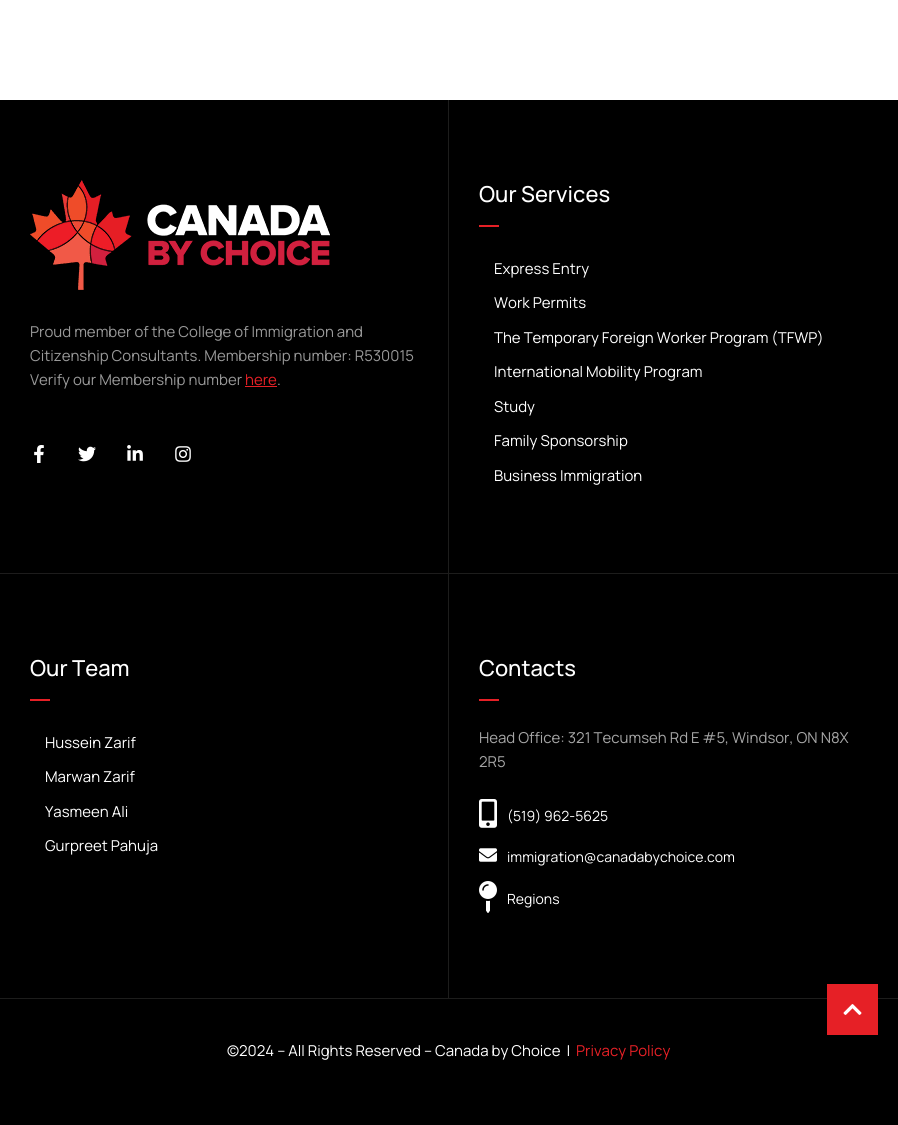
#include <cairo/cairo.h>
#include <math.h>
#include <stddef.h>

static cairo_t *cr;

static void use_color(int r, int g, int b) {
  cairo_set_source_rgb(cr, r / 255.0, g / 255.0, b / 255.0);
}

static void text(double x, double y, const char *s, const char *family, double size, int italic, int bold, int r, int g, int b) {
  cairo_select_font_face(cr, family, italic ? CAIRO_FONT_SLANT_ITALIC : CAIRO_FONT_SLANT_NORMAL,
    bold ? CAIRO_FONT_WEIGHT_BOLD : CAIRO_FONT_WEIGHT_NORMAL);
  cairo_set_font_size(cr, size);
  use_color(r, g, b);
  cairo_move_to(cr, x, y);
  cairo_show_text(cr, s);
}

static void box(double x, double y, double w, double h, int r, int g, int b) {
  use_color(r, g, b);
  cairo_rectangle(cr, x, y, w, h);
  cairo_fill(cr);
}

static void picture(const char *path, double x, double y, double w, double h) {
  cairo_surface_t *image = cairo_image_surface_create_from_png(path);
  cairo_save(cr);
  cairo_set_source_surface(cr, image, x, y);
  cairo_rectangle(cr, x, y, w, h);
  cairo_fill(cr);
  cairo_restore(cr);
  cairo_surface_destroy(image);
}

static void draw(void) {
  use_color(255, 255, 255);
  cairo_paint(cr);
  box(0, 100, 898, 1025, 0, 0, 0);
  box(0, 998, 898, 1, 29, 29, 28);
  cairo_new_path(cr);
  cairo_move_to(cr, 449, 100);
  cairo_line_to(cr, 449, 574);
  cairo_line_to(cr, 448, 573);
  cairo_line_to(cr, 448, 100);
  cairo_close_path(cr);
  cairo_fill(cr);
  cairo_set_source_rgba(cr, 0.878, 0.871, 0.855, 0.13);
  cairo_new_path(cr);
  cairo_move_to(cr, 449, 574);
  cairo_line_to(cr, 0, 574);
  cairo_line_to(cr, 0, 573);
  cairo_line_to(cr, 448, 573);
  cairo_close_path(cr);
  cairo_fill(cr);
  picture("img_01.png", 30, 180, 300, 110);
  box(245, 386, 32, 1, 230, 32, 38);
  picture("img_02.png", 34, 445, 10, 18);
  picture("img_03.png", 78, 446, 18, 16);
  picture("img_04.png", 127, 445, 16, 16);
  picture("img_05.png", 175, 446, 16, 16);
  box(449, 573, 449, 1, 29, 29, 28);
  box(479, 225, 20, 2, 230, 32, 38);
  box(448, 574, 1, 424, 29, 29, 28);
  box(30, 699, 20, 2, 230, 32, 38);
  box(479, 699, 20, 2, 230, 32, 38);
  picture("img_06.png", 479, 799, 18, 29);
  picture("img_07.png", 479, 848, 18, 14);
  picture("img_08.png", 479, 881, 18, 32);
  box(827, 984, 51, 51, 230, 32, 38);
  picture("img_09.png", 843, 1004, 19, 11);
  text(30, 337, "Proud member of the College of Immigration and", "Manrope ExtraLight", 15, 0, 0, 153, 153, 153);
  text(30, 361, "Citizenship Consultants. Membership number: R530015", "Manrope ExtraLight", 15, 0, 0, 153, 153, 153);
  text(30, 385, "Verify our Membership number", "Manrope ExtraLight", 15, 0, 0, 153, 153, 153);
  text(245, 385, "here", "Manrope ExtraLight", 15, 0, 0, 230, 32, 38);
  text(277, 385, ".", "Manrope ExtraLight", 15, 0, 0, 153, 153, 153);
  text(479, 202, "Our Services", "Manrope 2 ExtraLight", 22, 0, 0, 255, 255, 255);
  text(494, 274, "Express Entry", "Manrope ExtraLight", 15, 0, 0, 255, 255, 255);
  text(494, 308, "Work Permits", "Manrope ExtraLight", 15, 0, 0, 255, 255, 255);
  text(494, 343, "The Temporary Foreign Worker Program (TFWP)", "Manrope ExtraLight", 15, 0, 0, 255, 255, 255);
  text(494, 377, "International Mobility Program", "Manrope ExtraLight", 15, 0, 0, 255, 255, 255);
  text(494, 412, "Study", "Manrope ExtraLight", 15, 0, 0, 255, 255, 255);
  text(494, 446, "Family Sponsorship", "Manrope ExtraLight", 15, 0, 0, 255, 255, 255);
  text(494, 481, "Business Immigration", "Manrope ExtraLight", 15, 0, 0, 255, 255, 255);
  text(30, 676, "Our Team", "Manrope 2 ExtraLight", 22, 0, 0, 255, 255, 255);
  text(45, 748, "Hussein Zarif", "Manrope ExtraLight", 15, 0, 0, 255, 255, 255);
  text(45, 782, "Marwan Zarif", "Manrope ExtraLight", 15, 0, 0, 255, 255, 255);
  text(45, 817, "Yasmeen Ali", "Manrope ExtraLight", 15, 0, 0, 255, 255, 255);
  text(45, 851, "Gurpreet Pahuja", "Manrope ExtraLight", 15, 0, 0, 255, 255, 255);
  text(479, 676, "Contacts", "Manrope 2 ExtraLight", 22, 0, 0, 255, 255, 255);
  text(479, 743, "Head Office: 321 Tecumseh Rd E #5, Windsor, ON N8X", "Manrope ExtraLight", 15, 0, 0, 166, 166, 166);
  text(479, 767, "2R5", "Manrope ExtraLight", 15, 0, 0, 166, 166, 166);
  text(507, 821, "(519) 962-5625", "Manrope ExtraLight", 14, 0, 0, 255, 255, 255);
  text(507, 862, "immigration@canadabychoice.com", "Manrope ExtraLight", 14, 0, 0, 255, 255, 255);
  text(507, 904, "Regions", "Manrope ExtraLight", 14, 0, 0, 255, 255, 255);
  text(227, 1056, "©2024 – All Rights Reserved – Canada by Choice  |", "Manrope ExtraLight", 15, 0, 0, 255, 255, 255);
  text(576, 1056, "Privacy Policy", "Manrope ExtraLight", 15, 0, 0, 230, 32, 38);
}

int main(void) {
  cairo_surface_t *surface = cairo_image_surface_create(CAIRO_FORMAT_RGB24, 898, 1125);
  cr = cairo_create(surface);
  cairo_font_options_t *options = cairo_font_options_create();
  cairo_font_options_set_hint_metrics(options, CAIRO_HINT_METRICS_OFF);
  cairo_font_options_set_hint_style(options, CAIRO_HINT_STYLE_NONE);
  cairo_set_font_options(cr, options);
  cairo_set_miter_limit(cr, 4);
  draw();
  cairo_surface_write_to_png(surface, "out.png");
  cairo_font_options_destroy(options);
  cairo_destroy(cr);
  cairo_surface_destroy(surface);
  return 0;
}
